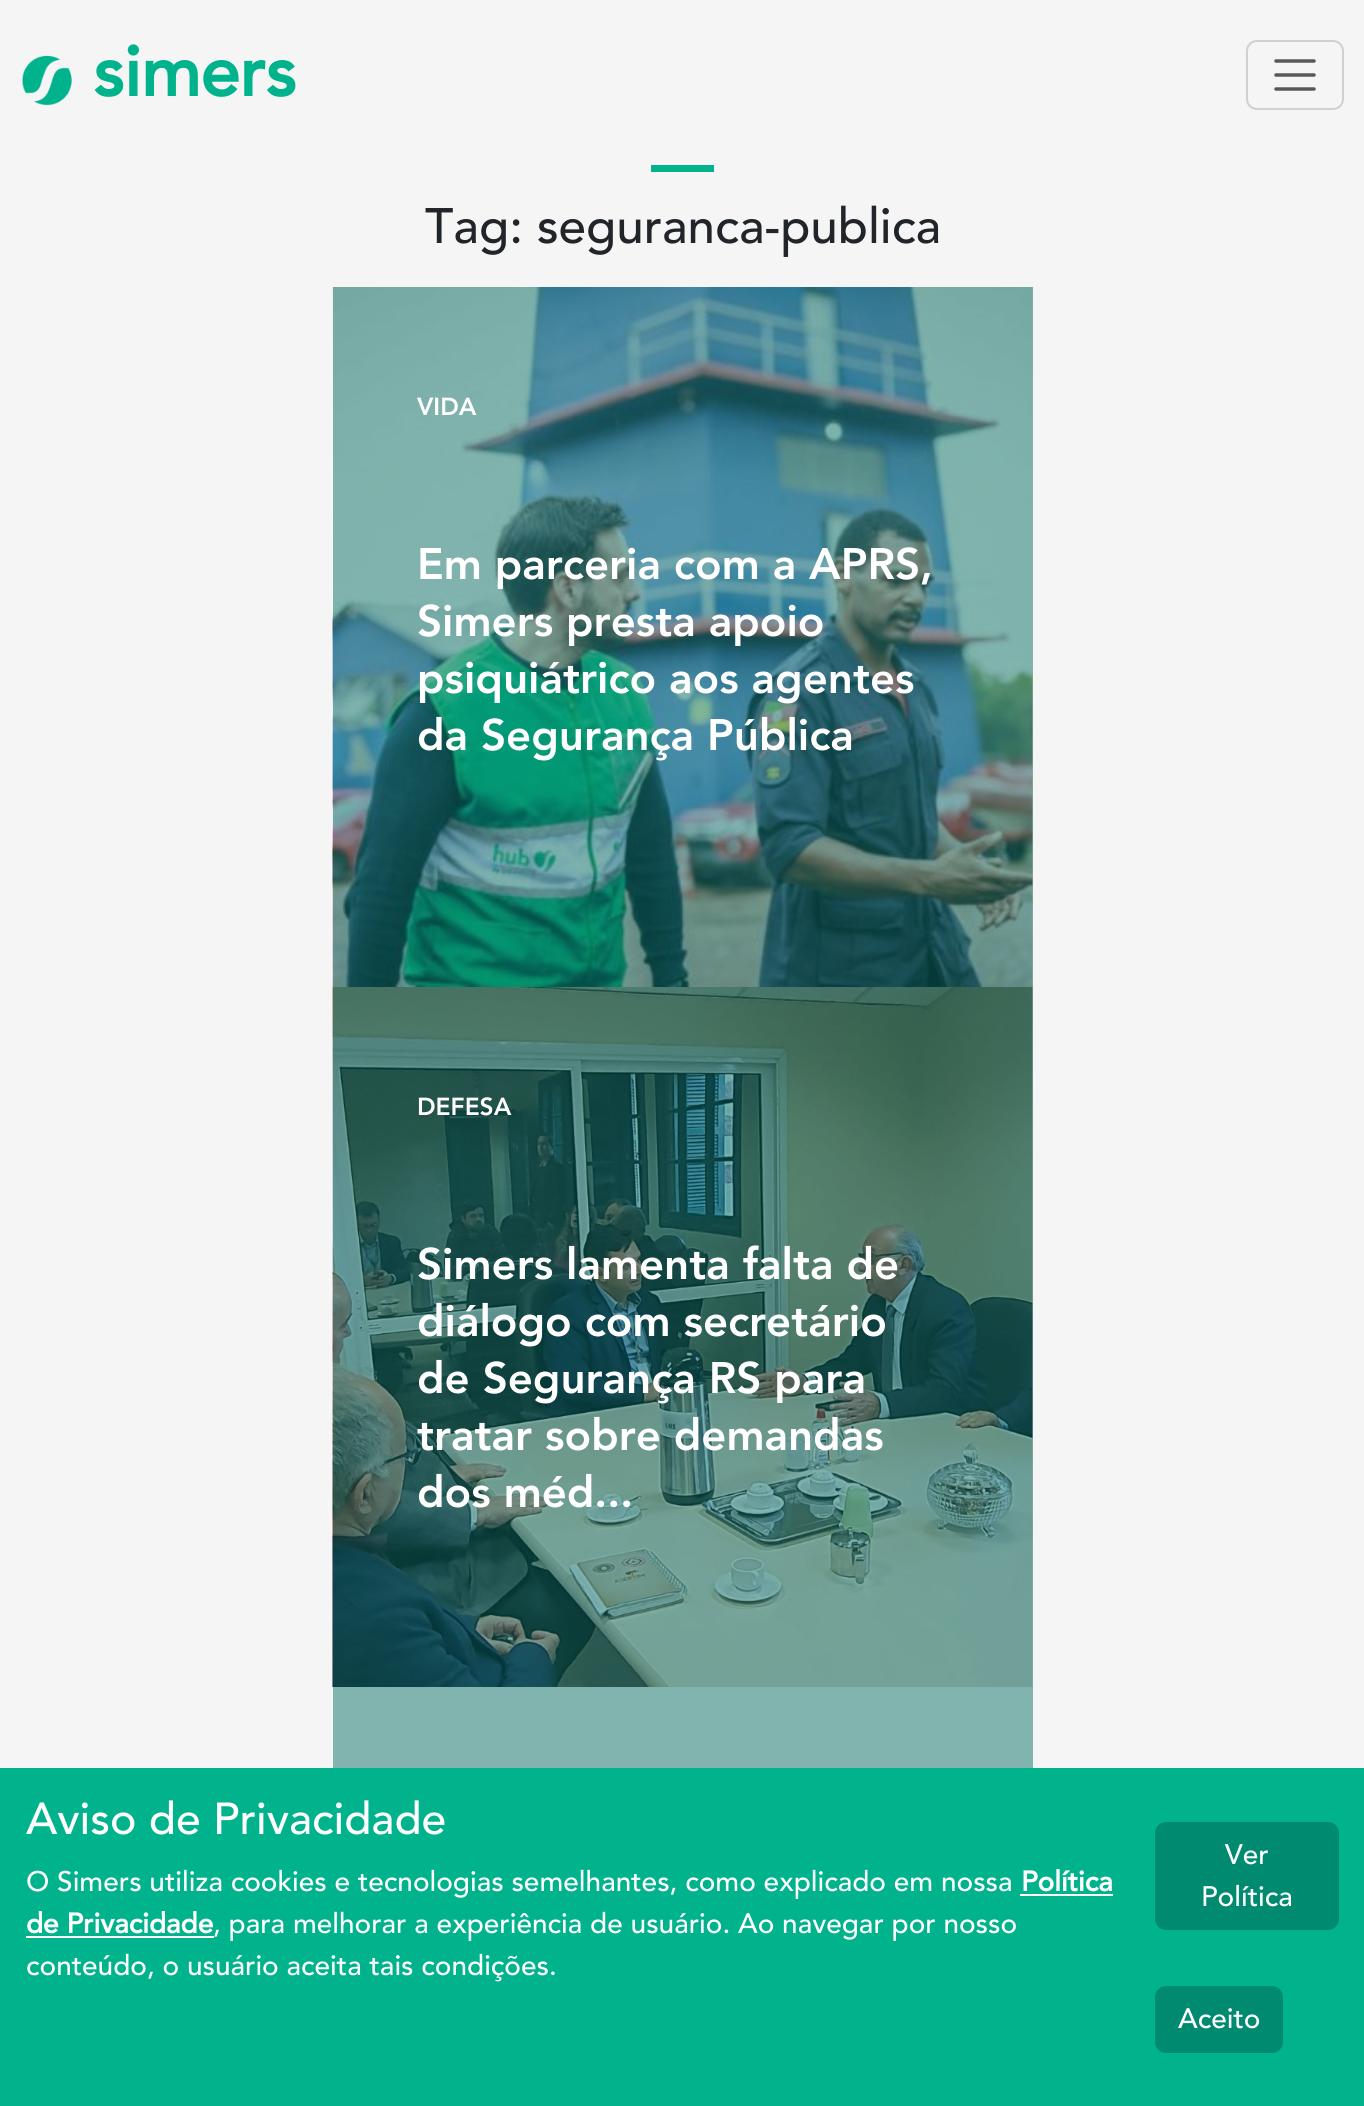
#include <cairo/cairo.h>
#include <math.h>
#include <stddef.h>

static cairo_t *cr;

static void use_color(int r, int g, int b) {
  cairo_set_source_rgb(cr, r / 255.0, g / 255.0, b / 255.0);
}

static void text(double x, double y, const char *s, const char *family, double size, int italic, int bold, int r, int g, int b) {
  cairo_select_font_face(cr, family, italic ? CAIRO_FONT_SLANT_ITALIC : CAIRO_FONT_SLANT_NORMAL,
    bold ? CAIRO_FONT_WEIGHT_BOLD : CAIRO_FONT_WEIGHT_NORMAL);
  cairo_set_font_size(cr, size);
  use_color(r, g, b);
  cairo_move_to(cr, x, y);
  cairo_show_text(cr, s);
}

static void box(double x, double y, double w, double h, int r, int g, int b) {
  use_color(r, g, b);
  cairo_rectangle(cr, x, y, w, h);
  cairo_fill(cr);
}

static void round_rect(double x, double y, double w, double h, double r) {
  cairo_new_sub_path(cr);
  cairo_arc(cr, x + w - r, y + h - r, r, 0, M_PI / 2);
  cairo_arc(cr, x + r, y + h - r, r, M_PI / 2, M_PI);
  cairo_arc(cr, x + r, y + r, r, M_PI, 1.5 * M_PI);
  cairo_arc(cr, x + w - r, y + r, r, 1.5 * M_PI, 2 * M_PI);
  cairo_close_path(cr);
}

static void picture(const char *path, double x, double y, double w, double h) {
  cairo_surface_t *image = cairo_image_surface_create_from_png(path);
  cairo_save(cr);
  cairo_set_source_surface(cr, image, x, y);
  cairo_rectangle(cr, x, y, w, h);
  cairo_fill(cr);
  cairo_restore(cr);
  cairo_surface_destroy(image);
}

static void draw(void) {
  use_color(245, 245, 245);
  cairo_paint(cr);
  picture("img_01.png", 22, 55, 50, 51);
  round_rect(1247, 41, 96, 68, 10);
  use_color(208, 208, 208);
  cairo_stroke(cr);
  cairo_new_path(cr);
  cairo_move_to(cr, 1276, 61);
  cairo_line_to(cr, 1314, 61);
  cairo_move_to(cr, 1276, 75);
  cairo_line_to(cr, 1314, 75);
  cairo_move_to(cr, 1276, 89);
  cairo_line_to(cr, 1314, 89);
  use_color(86, 89, 92);
  cairo_set_line_width(cr, 3.5);
  cairo_set_line_cap(cr, CAIRO_LINE_CAP_ROUND);
  cairo_stroke(cr);
  box(651, 165, 63, 7, 0, 179, 141);
  box(1032, 287, 1, 1400, 130, 180, 175);
  picture("img_02.png", 332, 287, 701, 700);
  picture("img_03.png", 332, 987, 701, 700);
  box(333, 1687, 700, 81, 130, 180, 175);
  box(0, 1768, 1364, 338, 0, 179, 141);
  box(1020, 1894, 93, 2, 255, 255, 255);
  box(26, 1936, 188, 2, 255, 255, 255);
  use_color(0, 139, 113);
  round_rect(1156, 1823, 182, 106, 10);
  cairo_fill_preserve(cr);
  cairo_set_line_width(cr, 2);
  cairo_set_line_cap(cr, CAIRO_LINE_CAP_BUTT);
  cairo_stroke(cr);
  round_rect(1156, 1987, 126, 65, 10);
  cairo_fill_preserve(cr);
  cairo_stroke(cr);
  text(93, 96, "simers", "Avenir", 70, 0, 1, 0, 179, 141);
  text(425, 243, "Tag: seguranca-publica", "Avenir Medium", 49.4, 0, 0, 33, 37, 41);
  text(417, 415, "VIDA", "Avenir Black", 24.5, 0, 0, 255, 255, 255);
  text(417, 579, "Em parceria com a APRS,", "Avenir Black", 43.75, 0, 0, 255, 255, 255);
  text(417, 636, "Simers presta apoio", "Avenir Black", 43.75, 0, 0, 255, 255, 255);
  text(417, 693, "psiquiátrico aos agentes", "Avenir Black", 43.75, 0, 0, 255, 255, 255);
  text(417, 750, "da Segurança Pública", "Avenir Black", 43.75, 0, 0, 255, 255, 255);
  text(417, 1115, "DEFESA", "Avenir Black", 24.5, 0, 0, 255, 255, 255);
  text(417, 1279, "Simers lamenta falta de", "Avenir Black", 43.75, 0, 0, 255, 255, 255);
  text(417, 1336, "diálogo com secretário", "Avenir Black", 43.75, 0, 0, 255, 255, 255);
  text(417, 1393, "de Segurança RS para", "Avenir Black", 43.75, 0, 0, 255, 255, 255);
  text(417, 1450, "tratar sobre demandas", "Avenir Black", 43.75, 0, 0, 255, 255, 255);
  text(417, 1507, "dos méd...", "Avenir Black", 43.75, 0, 0, 255, 255, 255);
  text(26, 1834, "Aviso de Privacidade", "Avenir Medium", 44.5, 0, 0, 255, 255, 255);
  text(26, 1891, "O Simers utiliza cookies e tecnologias semelhantes, como explicado em nossa", "Avenir Medium", 28, 0, 0, 255, 255, 255);
  text(1021, 1891, "Política", "Avenir", 28, 0, 1, 255, 255, 255);
  text(26, 1933, "de Privacidade", "Avenir", 28, 0, 1, 255, 255, 255);
  text(213, 1933, ", para melhorar a experiência de usuário. Ao navegar por nosso", "Avenir Medium", 28, 0, 0, 255, 255, 255);
  text(26, 1975, "conteúdo, o usuário aceita tais condições.", "Avenir Medium", 28, 0, 0, 255, 255, 255);
  text(1225, 1864, "Ver", "Avenir Medium", 28, 0, 0, 255, 255, 255);
  text(1201, 1906, "Política", "Avenir Medium", 28, 0, 0, 255, 255, 255);
  text(1178, 2028, "Aceito", "Avenir Medium", 28, 0, 0, 255, 255, 255);
}

int main(void) {
  cairo_surface_t *surface = cairo_image_surface_create(CAIRO_FORMAT_RGB24, 1364, 2106);
  cr = cairo_create(surface);
  cairo_font_options_t *options = cairo_font_options_create();
  cairo_font_options_set_hint_metrics(options, CAIRO_HINT_METRICS_OFF);
  cairo_font_options_set_hint_style(options, CAIRO_HINT_STYLE_NONE);
  cairo_set_font_options(cr, options);
  cairo_set_miter_limit(cr, 4);
  draw();
  cairo_surface_write_to_png(surface, "out.png");
  cairo_font_options_destroy(options);
  cairo_destroy(cr);
  cairo_surface_destroy(surface);
  return 0;
}
